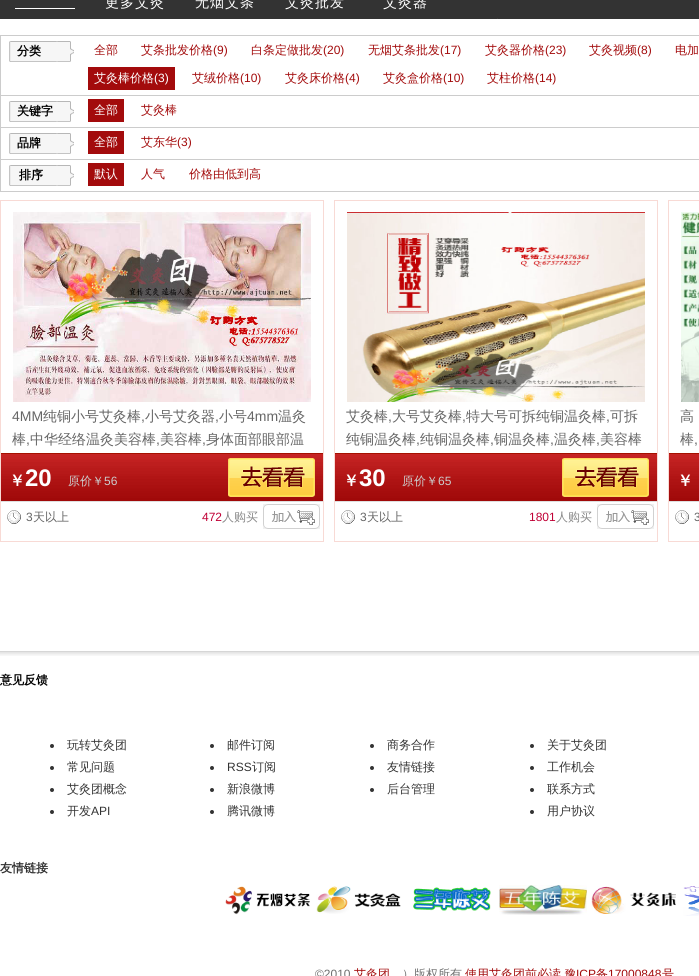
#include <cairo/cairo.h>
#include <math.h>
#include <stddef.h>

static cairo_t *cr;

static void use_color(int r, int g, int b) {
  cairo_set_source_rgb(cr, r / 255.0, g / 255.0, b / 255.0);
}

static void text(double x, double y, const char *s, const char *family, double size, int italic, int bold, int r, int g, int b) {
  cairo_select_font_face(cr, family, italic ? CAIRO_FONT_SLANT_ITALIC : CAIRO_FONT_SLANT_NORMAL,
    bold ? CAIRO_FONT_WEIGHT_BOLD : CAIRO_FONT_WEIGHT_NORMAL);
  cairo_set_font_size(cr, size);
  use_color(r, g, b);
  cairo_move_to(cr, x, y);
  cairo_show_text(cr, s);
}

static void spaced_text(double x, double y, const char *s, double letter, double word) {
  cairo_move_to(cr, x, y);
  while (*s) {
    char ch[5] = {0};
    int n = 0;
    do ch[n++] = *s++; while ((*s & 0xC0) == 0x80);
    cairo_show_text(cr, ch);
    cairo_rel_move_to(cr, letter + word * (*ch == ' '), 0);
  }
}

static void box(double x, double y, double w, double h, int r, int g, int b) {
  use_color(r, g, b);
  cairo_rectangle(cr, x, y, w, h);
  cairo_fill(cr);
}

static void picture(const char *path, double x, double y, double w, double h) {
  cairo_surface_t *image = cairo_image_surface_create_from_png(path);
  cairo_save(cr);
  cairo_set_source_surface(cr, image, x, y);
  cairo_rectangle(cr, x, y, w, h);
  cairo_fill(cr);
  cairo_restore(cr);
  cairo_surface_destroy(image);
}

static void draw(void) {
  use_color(255, 255, 255);
  cairo_paint(cr);
  box(0, 0, 699, 19, 51, 51, 51);
  box(497, 18, 1, 1, 61, 61, 61);
  box(15, 8, 60, 1, 255, 255, 255);
  cairo_rectangle(cr, 0.5, 35.5, 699, 156);
  use_color(204, 204, 204);
  cairo_set_line_width(cr, 1);
  cairo_stroke(cr);
  box(1, 95, 698, 1, 204, 204, 204);
  picture("img_01.png", 9, 41, 65, 21);
  box(88, 67, 87, 23, 163, 11, 12);
  box(1, 127, 698, 1, 204, 204, 204);
  picture("img_01.png", 9, 101, 65, 21);
  box(88, 99, 36, 23, 163, 11, 12);
  box(1, 159, 698, 1, 204, 204, 204);
  picture("img_01.png", 9, 133, 65, 21);
  box(88, 131, 36, 23, 163, 11, 12);
  picture("img_01.png", 9, 165, 65, 21);
  box(88, 163, 36, 23, 163, 11, 12);
  cairo_rectangle(cr, 0.5, 200.5, 323, 341);
  use_color(248, 218, 213);
  cairo_stroke(cr);
  picture("img_02.png", 13, 212, 298, 190);
  picture("img_03.png", 1, 453, 322, 48);
  box(1, 501, 322, 1, 223, 223, 223);
  picture("img_04.png", 7, 510, 14, 14);
  picture("img_05.png", 263, 504, 57, 25);
  cairo_rectangle(cr, 334.5, 200.5, 323, 341);
  use_color(248, 218, 213);
  cairo_stroke(cr);
  picture("img_06.png", 347, 212, 298, 190);
  picture("img_03.png", 335, 453, 322, 48);
  box(335, 501, 322, 1, 223, 223, 223);
  picture("img_04.png", 341, 510, 14, 14);
  picture("img_05.png", 597, 504, 57, 25);
  cairo_rectangle(cr, 668.5, 200.5, 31, 341);
  use_color(248, 218, 213);
  cairo_stroke(cr);
  picture("img_07.png", 681, 212, 18, 190);
  picture("img_08.png", 669, 453, 30, 48);
  box(669, 501, 30, 1, 223, 223, 223);
  picture("img_04.png", 675, 510, 14, 14);
  picture("img_09.png", 0, 651, 699, 5);
  use_color(51, 51, 51);
  cairo_arc(cr, 52, 746, 2, 0, 2 * M_PI);
  cairo_fill(cr);
  cairo_arc(cr, 52, 768, 2, 0, 2 * M_PI);
  cairo_fill(cr);
  cairo_arc(cr, 52, 790, 2, 0, 2 * M_PI);
  cairo_fill(cr);
  cairo_arc(cr, 52, 812, 2, 0, 2 * M_PI);
  cairo_fill(cr);
  cairo_arc(cr, 212, 746, 2, 0, 2 * M_PI);
  cairo_fill(cr);
  cairo_arc(cr, 212, 768, 2, 0, 2 * M_PI);
  cairo_fill(cr);
  cairo_arc(cr, 212, 790, 2, 0, 2 * M_PI);
  cairo_fill(cr);
  cairo_arc(cr, 212, 812, 2, 0, 2 * M_PI);
  cairo_fill(cr);
  cairo_arc(cr, 372, 746, 2, 0, 2 * M_PI);
  cairo_fill(cr);
  cairo_arc(cr, 372, 768, 2, 0, 2 * M_PI);
  cairo_fill(cr);
  cairo_arc(cr, 372, 790, 2, 0, 2 * M_PI);
  cairo_fill(cr);
  cairo_arc(cr, 532, 746, 2, 0, 2 * M_PI);
  cairo_fill(cr);
  cairo_arc(cr, 532, 768, 2, 0, 2 * M_PI);
  cairo_fill(cr);
  cairo_arc(cr, 532, 790, 2, 0, 2 * M_PI);
  cairo_fill(cr);
  cairo_arc(cr, 532, 812, 2, 0, 2 * M_PI);
  cairo_fill(cr);
  picture("img_10.png", 225, 886, 85, 29);
  picture("img_11.png", 316, 886, 85, 28);
  picture("img_12.png", 413, 887, 78, 24);
  picture("img_13.png", 499, 885, 88, 30);
  picture("img_14.png", 591, 886, 85, 28);
  picture("img_15.png", 683, 886, 16, 30);
  cairo_select_font_face(cr, "WenQuanYi Zen Hei Medium", CAIRO_FONT_SLANT_NORMAL, CAIRO_FONT_WEIGHT_NORMAL);
  cairo_set_font_size(cr, 14);
  use_color(255, 255, 255);
  spaced_text(105, 7, "更多艾灸", 1, 0);
  spaced_text(195, 7, "无烟艾条", 1, 0);
  spaced_text(285, 7, "艾灸批发", 1, 0);
  spaced_text(383, 7, "艾灸器", 1, 0);
  text(17, 55, "分类", "WenQuanYi Zen Hei", 12, 0, 1, 0, 0, 0);
  text(94, 54, "全部", "WenQuanYi Zen Hei Medium", 12, 0, 0, 163, 11, 12);
  text(141, 54, "艾条批发价格", "WenQuanYi Zen Hei Medium", 12, 0, 0, 163, 11, 12);
  text(213, 54, "(9)", "Liberation Sans", 12, 0, 0, 163, 11, 12);
  text(251, 54, "白条定做批发", "WenQuanYi Zen Hei Medium", 12, 0, 0, 163, 11, 12);
  text(323, 54, "(20)", "Liberation Sans", 12, 0, 0, 163, 11, 12);
  text(368, 54, "无烟艾条批发", "WenQuanYi Zen Hei Medium", 12, 0, 0, 163, 11, 12);
  text(440, 54, "(17)", "Liberation Sans", 12, 0, 0, 163, 11, 12);
  text(485, 54, "艾灸器价格", "WenQuanYi Zen Hei Medium", 12, 0, 0, 163, 11, 12);
  text(545, 54, "(23)", "Liberation Sans", 12, 0, 0, 163, 11, 12);
  text(589, 54, "艾灸视频", "WenQuanYi Zen Hei Medium", 12, 0, 0, 163, 11, 12);
  text(637, 54, "(8)", "Liberation Sans", 12, 0, 0, 163, 11, 12);
  text(675, 54, "电加", "WenQuanYi Zen Hei Medium", 12, 0, 0, 163, 11, 12);
  text(94, 82, "艾灸棒价格", "WenQuanYi Zen Hei Medium", 12, 0, 0, 255, 255, 255);
  text(154, 82, "(3)", "Liberation Sans", 12, 0, 0, 255, 255, 255);
  text(192, 82, "艾绒价格", "WenQuanYi Zen Hei Medium", 12, 0, 0, 163, 11, 12);
  text(240, 82, "(10)", "Liberation Sans", 12, 0, 0, 163, 11, 12);
  text(285, 82, "艾灸床价格", "WenQuanYi Zen Hei Medium", 12, 0, 0, 163, 11, 12);
  text(345, 82, "(4)", "Liberation Sans", 12, 0, 0, 163, 11, 12);
  text(383, 82, "艾灸盒价格", "WenQuanYi Zen Hei Medium", 12, 0, 0, 163, 11, 12);
  text(443, 82, "(10)", "Liberation Sans", 12, 0, 0, 163, 11, 12);
  text(487, 82, "艾柱价格", "WenQuanYi Zen Hei Medium", 12, 0, 0, 163, 11, 12);
  text(535, 82, "(14)", "Liberation Sans", 12, 0, 0, 163, 11, 12);
  text(17, 115, "关键字", "WenQuanYi Zen Hei", 12, 0, 1, 0, 0, 0);
  text(94, 114, "全部", "WenQuanYi Zen Hei Medium", 12, 0, 0, 255, 255, 255);
  text(141, 114, "艾灸棒", "WenQuanYi Zen Hei Medium", 12, 0, 0, 163, 11, 12);
  text(17, 147, "品牌", "WenQuanYi Zen Hei", 12, 0, 1, 0, 0, 0);
  text(94, 146, "全部", "WenQuanYi Zen Hei Medium", 12, 0, 0, 255, 255, 255);
  text(141, 146, "艾东华", "WenQuanYi Zen Hei Medium", 12, 0, 0, 163, 11, 12);
  text(177, 146, "(3)", "Liberation Sans", 12, 0, 0, 163, 11, 12);
  text(19, 179, "排序", "WenQuanYi Zen Hei", 12, 0, 1, 0, 0, 0);
  text(94, 178, "默认", "WenQuanYi Zen Hei Medium", 12, 0, 0, 255, 255, 255);
  text(141, 178, "人气", "WenQuanYi Zen Hei Medium", 12, 0, 0, 163, 11, 12);
  text(189, 178, "价格由低到高", "WenQuanYi Zen Hei Medium", 12, 0, 0, 163, 11, 12);
  text(12, 421, "4MM", "Liberation Sans", 14, 0, 0, 102, 102, 102);
  text(43, 421, "纯铜小号艾灸棒", "WenQuanYi Zen Hei Medium", 14, 0, 0, 102, 102, 102);
  text(141, 421, ",", "Liberation Sans", 14, 0, 0, 102, 102, 102);
  text(145, 421, "小号艾灸器", "WenQuanYi Zen Hei Medium", 14, 0, 0, 102, 102, 102);
  text(215, 421, ",", "Liberation Sans", 14, 0, 0, 102, 102, 102);
  text(219, 421, "小号", "WenQuanYi Zen Hei Medium", 14, 0, 0, 102, 102, 102);
  text(247, 421, "4mm", "Liberation Sans", 14, 0, 0, 102, 102, 102);
  text(278, 421, "温灸", "WenQuanYi Zen Hei Medium", 14, 0, 0, 102, 102, 102);
  text(12, 444, "棒", "WenQuanYi Zen Hei Medium", 14, 0, 0, 102, 102, 102);
  text(26, 444, ",", "Liberation Sans", 14, 0, 0, 102, 102, 102);
  text(30, 444, "中华经络温灸美容棒", "WenQuanYi Zen Hei Medium", 14, 0, 0, 102, 102, 102);
  text(156, 444, ",", "Liberation Sans", 14, 0, 0, 102, 102, 102);
  text(160, 444, "美容棒", "WenQuanYi Zen Hei Medium", 14, 0, 0, 102, 102, 102);
  text(202, 444, ",", "Liberation Sans", 14, 0, 0, 102, 102, 102);
  text(206, 444, "身体面部眼部温", "WenQuanYi Zen Hei Medium", 14, 0, 0, 102, 102, 102);
  text(9, 486, "￥", "WenQuanYi Zen Hei", 16, 0, 1, 255, 255, 255);
  text(25, 486, "20", "Liberation Sans", 24, 0, 1, 255, 255, 255);
  text(68, 485, "原价￥", "WenQuanYi Zen Hei Medium", 12, 0, 0, 204, 204, 204);
  text(104, 485, "56", "Liberation Sans", 12, 0, 0, 204, 204, 204);
  text(26, 521, "3", "Liberation Sans", 12, 0, 0, 102, 102, 102);
  text(33, 521, "天以上", "WenQuanYi Zen Hei Medium", 12, 0, 0, 102, 102, 102);
  text(202, 521, "472", "Liberation Sans", 12, 0, 0, 192, 0, 53);
  text(222, 521, "人购买", "WenQuanYi Zen Hei Medium", 12, 0, 0, 136, 136, 136);
  text(346, 421, "艾灸棒", "WenQuanYi Zen Hei Medium", 14, 0, 0, 102, 102, 102);
  text(388, 421, ",", "Liberation Sans", 14, 0, 0, 102, 102, 102);
  text(392, 421, "大号艾灸棒", "WenQuanYi Zen Hei Medium", 14, 0, 0, 102, 102, 102);
  text(462, 421, ",", "Liberation Sans", 14, 0, 0, 102, 102, 102);
  text(466, 421, "特大号可拆纯铜温灸棒", "WenQuanYi Zen Hei Medium", 14, 0, 0, 102, 102, 102);
  text(606, 421, ",", "Liberation Sans", 14, 0, 0, 102, 102, 102);
  text(610, 421, "可拆", "WenQuanYi Zen Hei Medium", 14, 0, 0, 102, 102, 102);
  text(346, 444, "纯铜温灸棒", "WenQuanYi Zen Hei Medium", 14, 0, 0, 102, 102, 102);
  text(416, 444, ",", "Liberation Sans", 14, 0, 0, 102, 102, 102);
  text(420, 444, "纯铜温灸棒", "WenQuanYi Zen Hei Medium", 14, 0, 0, 102, 102, 102);
  text(490, 444, ",", "Liberation Sans", 14, 0, 0, 102, 102, 102);
  text(494, 444, "铜温灸棒", "WenQuanYi Zen Hei Medium", 14, 0, 0, 102, 102, 102);
  text(550, 444, ",", "Liberation Sans", 14, 0, 0, 102, 102, 102);
  text(554, 444, "温灸棒", "WenQuanYi Zen Hei Medium", 14, 0, 0, 102, 102, 102);
  text(596, 444, ",", "Liberation Sans", 14, 0, 0, 102, 102, 102);
  text(600, 444, "美容棒", "WenQuanYi Zen Hei Medium", 14, 0, 0, 102, 102, 102);
  text(343, 486, "￥", "WenQuanYi Zen Hei", 16, 0, 1, 255, 255, 255);
  text(359, 486, "30", "Liberation Sans", 24, 0, 1, 255, 255, 255);
  text(402, 485, "原价￥", "WenQuanYi Zen Hei Medium", 12, 0, 0, 204, 204, 204);
  text(438, 485, "65", "Liberation Sans", 12, 0, 0, 204, 204, 204);
  text(360, 521, "3", "Liberation Sans", 12, 0, 0, 102, 102, 102);
  text(367, 521, "天以上", "WenQuanYi Zen Hei Medium", 12, 0, 0, 102, 102, 102);
  text(529, 521, "1801", "Liberation Sans", 12, 0, 0, 192, 0, 53);
  text(556, 521, "人购买", "WenQuanYi Zen Hei Medium", 12, 0, 0, 136, 136, 136);
  text(680, 421, "高", "WenQuanYi Zen Hei Medium", 14, 0, 0, 102, 102, 102);
  text(680, 444, "棒", "WenQuanYi Zen Hei Medium", 14, 0, 0, 102, 102, 102);
  text(694, 444, ",", "Liberation Sans", 14, 0, 0, 102, 102, 102);
  text(677, 486, "￥", "WenQuanYi Zen Hei", 16, 0, 1, 255, 255, 255);
  text(694, 521, "3", "Liberation Sans", 12, 0, 0, 102, 102, 102);
  text(0, 684, "意见反馈", "WenQuanYi Zen Hei", 12, 0, 1, 0, 0, 0);
  text(67, 749, "玩转艾灸团", "WenQuanYi Zen Hei Medium", 12, 0, 0, 51, 51, 51);
  text(67, 771, "常见问题", "WenQuanYi Zen Hei Medium", 12, 0, 0, 51, 51, 51);
  text(67, 793, "艾灸团概念", "WenQuanYi Zen Hei Medium", 12, 0, 0, 51, 51, 51);
  text(67, 815, "开发", "WenQuanYi Zen Hei Medium", 12, 0, 0, 51, 51, 51);
  text(91, 815, "API", "Liberation Sans", 12, 0, 0, 51, 51, 51);
  text(227, 749, "邮件订阅", "WenQuanYi Zen Hei Medium", 12, 0, 0, 51, 51, 51);
  text(227, 771, "RSS", "Liberation Sans", 12, 0, 0, 51, 51, 51);
  text(252, 771, "订阅", "WenQuanYi Zen Hei Medium", 12, 0, 0, 51, 51, 51);
  text(227, 793, "新浪微博", "WenQuanYi Zen Hei Medium", 12, 0, 0, 51, 51, 51);
  text(227, 815, "腾讯微博", "WenQuanYi Zen Hei Medium", 12, 0, 0, 51, 51, 51);
  text(387, 749, "商务合作", "WenQuanYi Zen Hei Medium", 12, 0, 0, 51, 51, 51);
  text(387, 771, "友情链接", "WenQuanYi Zen Hei Medium", 12, 0, 0, 51, 51, 51);
  text(387, 793, "后台管理", "WenQuanYi Zen Hei Medium", 12, 0, 0, 51, 51, 51);
  text(547, 749, "关于艾灸团", "WenQuanYi Zen Hei Medium", 12, 0, 0, 51, 51, 51);
  text(547, 771, "工作机会", "WenQuanYi Zen Hei Medium", 12, 0, 0, 51, 51, 51);
  text(547, 793, "联系方式", "WenQuanYi Zen Hei Medium", 12, 0, 0, 51, 51, 51);
  text(547, 815, "用户协议", "WenQuanYi Zen Hei Medium", 12, 0, 0, 51, 51, 51);
  text(0, 872, "友情链接", "WenQuanYi Zen Hei", 12, 0, 1, 51, 51, 51);
  text(315, 978, "©2010", "Liberation Sans", 12, 0, 0, 111, 111, 111);
  text(354, 978, "艾灸团", "WenQuanYi Zen Hei Medium", 12, 0, 0, 163, 11, 12);
  text(402, 978, "）版权所有", "WenQuanYi Zen Hei Medium", 12, 0, 0, 111, 111, 111);
  text(465, 978, "使用艾灸团前必读 豫", "WenQuanYi Zen Hei Medium", 12, 0, 0, 163, 11, 12);
  text(576, 978, "ICP", "Liberation Sans", 12, 0, 0, 163, 11, 12);
  text(596, 978, "备", "WenQuanYi Zen Hei Medium", 12, 0, 0, 163, 11, 12);
  text(608, 978, "17000848", "Liberation Sans", 12, 0, 0, 163, 11, 12);
  text(662, 978, "号", "WenQuanYi Zen Hei Medium", 12, 0, 0, 163, 11, 12);
}

int main(void) {
  cairo_surface_t *surface = cairo_image_surface_create(CAIRO_FORMAT_RGB24, 699, 976);
  cr = cairo_create(surface);
  cairo_font_options_t *options = cairo_font_options_create();
  cairo_font_options_set_hint_metrics(options, CAIRO_HINT_METRICS_OFF);
  cairo_font_options_set_hint_style(options, CAIRO_HINT_STYLE_NONE);
  cairo_set_font_options(cr, options);
  cairo_set_miter_limit(cr, 4);
  draw();
  cairo_surface_write_to_png(surface, "out.png");
  cairo_font_options_destroy(options);
  cairo_destroy(cr);
  cairo_surface_destroy(surface);
  return 0;
}
